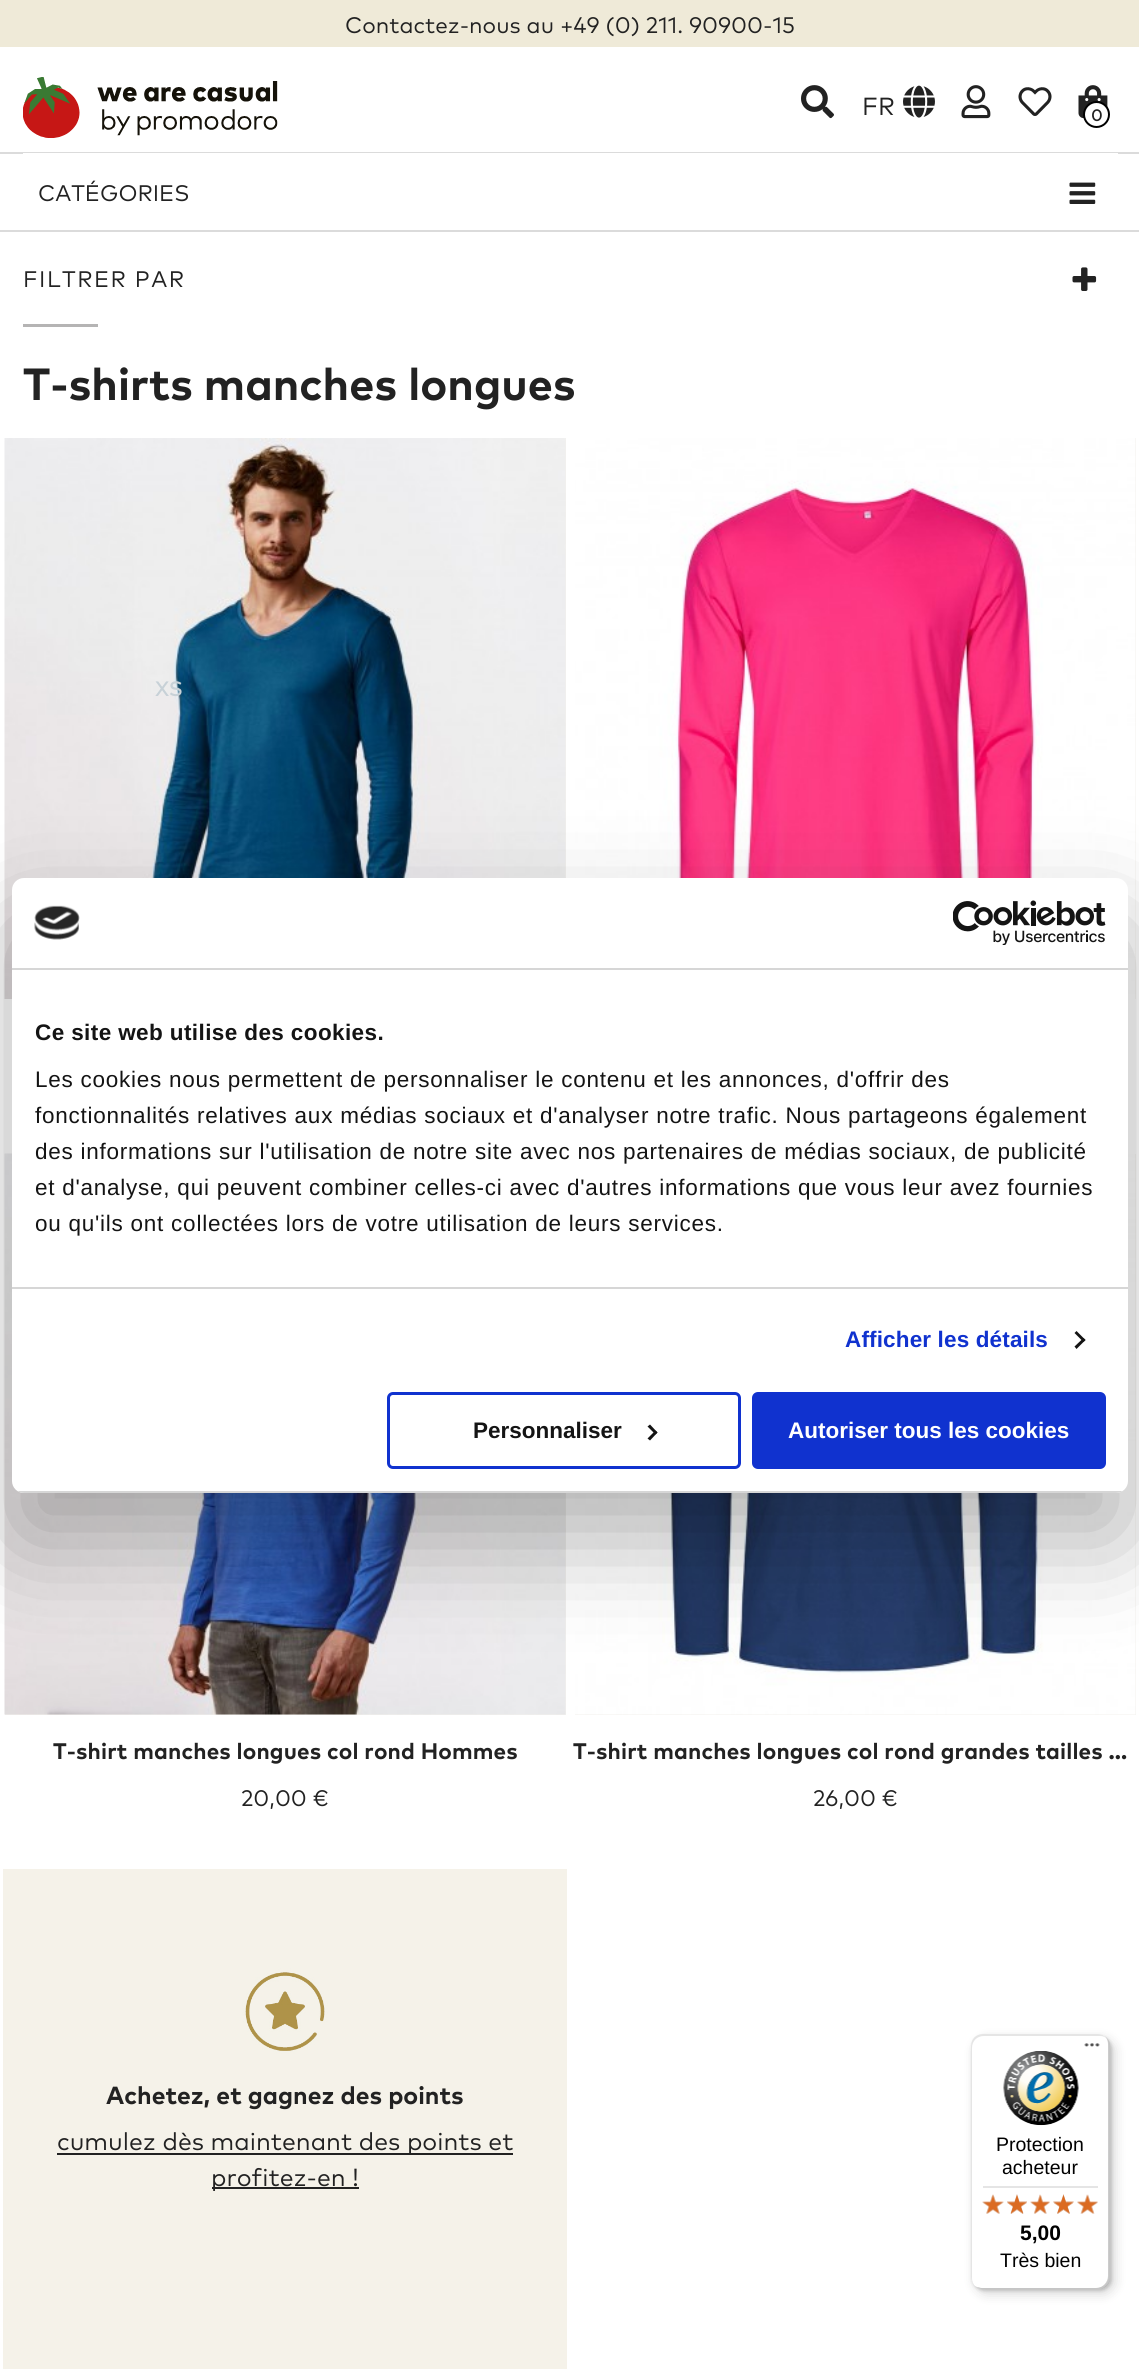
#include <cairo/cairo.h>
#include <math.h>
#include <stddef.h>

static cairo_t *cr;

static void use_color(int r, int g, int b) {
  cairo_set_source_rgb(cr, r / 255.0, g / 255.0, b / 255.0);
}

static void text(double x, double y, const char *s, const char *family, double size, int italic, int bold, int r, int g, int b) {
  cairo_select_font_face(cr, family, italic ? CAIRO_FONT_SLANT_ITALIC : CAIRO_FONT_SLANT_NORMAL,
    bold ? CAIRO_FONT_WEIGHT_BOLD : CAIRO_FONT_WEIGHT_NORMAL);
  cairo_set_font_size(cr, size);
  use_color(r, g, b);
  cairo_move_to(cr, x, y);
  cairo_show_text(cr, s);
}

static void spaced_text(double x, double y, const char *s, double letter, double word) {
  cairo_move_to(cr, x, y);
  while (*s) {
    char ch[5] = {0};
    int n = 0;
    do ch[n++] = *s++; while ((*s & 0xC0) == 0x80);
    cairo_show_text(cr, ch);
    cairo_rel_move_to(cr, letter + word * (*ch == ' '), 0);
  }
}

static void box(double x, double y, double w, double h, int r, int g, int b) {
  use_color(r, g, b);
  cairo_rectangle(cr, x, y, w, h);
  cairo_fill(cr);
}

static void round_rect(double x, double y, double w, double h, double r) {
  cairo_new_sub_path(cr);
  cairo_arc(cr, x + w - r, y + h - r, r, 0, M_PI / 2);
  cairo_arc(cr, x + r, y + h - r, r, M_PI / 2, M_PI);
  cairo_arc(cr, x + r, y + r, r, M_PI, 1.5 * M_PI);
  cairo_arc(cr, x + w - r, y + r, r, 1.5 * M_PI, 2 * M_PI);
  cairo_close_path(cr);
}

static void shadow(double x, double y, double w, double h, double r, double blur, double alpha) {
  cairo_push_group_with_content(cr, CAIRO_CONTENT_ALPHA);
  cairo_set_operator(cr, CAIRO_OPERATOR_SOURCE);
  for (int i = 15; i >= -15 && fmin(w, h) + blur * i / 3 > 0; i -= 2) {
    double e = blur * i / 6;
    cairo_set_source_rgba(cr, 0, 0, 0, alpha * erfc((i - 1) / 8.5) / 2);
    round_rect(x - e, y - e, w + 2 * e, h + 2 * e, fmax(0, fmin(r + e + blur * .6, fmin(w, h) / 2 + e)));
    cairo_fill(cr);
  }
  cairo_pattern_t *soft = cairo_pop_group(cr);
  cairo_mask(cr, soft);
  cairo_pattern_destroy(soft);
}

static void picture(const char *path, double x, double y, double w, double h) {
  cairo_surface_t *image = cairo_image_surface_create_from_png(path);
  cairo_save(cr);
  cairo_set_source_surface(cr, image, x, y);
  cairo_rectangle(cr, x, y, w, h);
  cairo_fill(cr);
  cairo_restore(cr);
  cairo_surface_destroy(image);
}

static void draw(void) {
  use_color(255, 255, 255);
  cairo_paint(cr);
  box(0, 0, 1139, 47, 239, 234, 216);
  picture("img_01.png", 23, 77, 255, 61);
  picture("img_02.png", 801, 85, 33, 34);
  picture("img_03.png", 903, 85, 32, 33);
  picture("img_04.png", 961, 85, 30, 34);
  picture("img_05.png", 1018, 87, 34, 29);
  picture("img_06.png", 1078, 85, 30, 34);
  use_color(255, 255, 255);
  cairo_arc(cr, 1096.5, 114.5, 12.5, 0, 2 * M_PI);
  cairo_fill_preserve(cr);
  use_color(0, 0, 0);
  cairo_stroke(cr);
  box(0, 152, 1139, 2, 219, 219, 219);
  box(0, 230, 1139, 2, 219, 219, 219);
  box(23, 153, 1095, 1, 255, 255, 255);
  picture("img_07.png", 1069, 182, 27, 22);
  picture("img_08.png", 1072, 267, 25, 24);
  box(23, 324, 75, 3, 181, 180, 180);
  box(565, 438, 1, 440, 242, 241, 237);
  picture("img_09.png", 4, 438, 562, 561);
  box(1135, 438, 1, 561, 242, 241, 237);
  picture("img_10.png", 575, 438, 561, 561);
  box(5, 1493, 561, 222, 242, 241, 237);
  picture("img_11.png", 4, 1153, 562, 562);
  box(575, 1154, 561, 561, 242, 241, 237);
  picture("img_12.png", 575, 1154, 561, 561);
  picture("img_13.png", 3, 1869, 564, 500);
  box(57, 2153, 456, 2, 34, 34, 34);
  box(212, 2187, 147, 2, 34, 34, 34);
  use_color(0, 0, 0);
  shadow(12, 926, 1116, 615, 12, 51, 0.3);
  use_color(255, 255, 255);
  round_rect(12, 878, 1116, 615, 12);
  cairo_fill(cr);
  box(12, 968, 1116, 2, 214, 214, 214);
  picture("img_14.png", 34, 905, 46, 35);
  picture("img_15.png", 953, 900, 153, 45);
  box(12, 1287, 1116, 2, 214, 214, 214);
  use_color(20, 20, 20);
  cairo_new_path(cr);
  cairo_move_to(cr, 1076.5, 1331);
  cairo_line_to(cr, 1085.5, 1340);
  cairo_line_to(cr, 1083.5, 1342);
  cairo_line_to(cr, 1074.5, 1333);
  cairo_close_path(cr);
  cairo_fill(cr);
  cairo_new_path(cr);
  cairo_move_to(cr, 1083.5, 1338);
  cairo_line_to(cr, 1085.5, 1340);
  cairo_line_to(cr, 1076.5, 1349);
  cairo_line_to(cr, 1074.5, 1346.5);
  cairo_close_path(cr);
  cairo_fill(cr);
  cairo_save(cr);
  round_rect(12, 878, 1116, 615, 12);
  cairo_clip(cr);
  box(12, 1491, 1116, 2, 214, 214, 214);
  cairo_restore(cr);
  round_rect(388.5, 1393.5, 351, 74, 4.5);
  use_color(16, 50, 207);
  cairo_set_line_width(cr, 3);
  cairo_stroke(cr);
  use_color(20, 20, 20);
  cairo_new_path(cr);
  cairo_move_to(cr, 650, 1424.5);
  cairo_line_to(cr, 657.5, 1432.5);
  cairo_line_to(cr, 655.5, 1434.5);
  cairo_line_to(cr, 647.5, 1426.5);
  cairo_close_path(cr);
  cairo_fill(cr);
  cairo_new_path(cr);
  cairo_move_to(cr, 655.5, 1430.5);
  cairo_line_to(cr, 657.5, 1432.5);
  cairo_line_to(cr, 650, 1440.5);
  cairo_line_to(cr, 647.5, 1438.5);
  cairo_close_path(cr);
  cairo_fill(cr);
  use_color(16, 50, 207);
  round_rect(753.5, 1393.5, 351, 74, 4.5);
  cairo_fill_preserve(cr);
  cairo_stroke(cr);
  use_color(0, 0, 0);
  shadow(975, 2039, 140, 255, 12, 6, 0.15);
  shadow(972, 2036, 140, 255, 12, 1.5, 0.15);
  use_color(255, 255, 255);
  round_rect(971, 2034, 139, 255, 12);
  cairo_fill(cr);
  use_color(229, 229, 229);
  cairo_new_path(cr);
  cairo_move_to(cr, 984, 2036);
  cairo_line_to(cr, 1100, 2036);
  cairo_curve_to(cr, 1103, 2036, 1105, 2037, 1108, 2039);
  cairo_curve_to(cr, 1105, 2036, 1102, 2034, 1098, 2034);
  cairo_line_to(cr, 983, 2034);
  cairo_curve_to(cr, 976, 2034, 971, 2039, 971, 2046);
  cairo_line_to(cr, 971, 2277);
  cairo_curve_to(cr, 971, 2280, 972, 2283, 974, 2285);
  cairo_curve_to(cr, 973, 2283, 972, 2281, 972, 2278);
  cairo_line_to(cr, 972, 2048);
  cairo_curve_to(cr, 972, 2041, 977, 2036, 984, 2036);
  cairo_close_path(cr);
  cairo_fill(cr);
  cairo_set_source_rgba(cr, 0, 0, 0, 0.2);
  cairo_new_path(cr);
  cairo_move_to(cr, 977, 2287);
  cairo_curve_to(cr, 978, 2288, 981, 2289, 983, 2289);
  cairo_line_to(cr, 1098, 2289);
  cairo_curve_to(cr, 1105, 2289, 1110, 2284, 1110, 2277);
  cairo_line_to(cr, 1110, 2046);
  cairo_curve_to(cr, 1110, 2042, 1108, 2039, 1105, 2036);
  cairo_curve_to(cr, 1107, 2039, 1108, 2041, 1108, 2044);
  cairo_line_to(cr, 1108, 2276);
  cairo_curve_to(cr, 1108, 2282, 1103, 2288, 1096, 2288);
  cairo_line_to(cr, 981, 2288);
  cairo_close_path(cr);
  cairo_fill(cr);
  cairo_set_source_rgba(cr, 0.196, 0.196, 0.196, 0.2);
  cairo_new_path(cr);
  cairo_move_to(cr, 975, 2286);
  cairo_curve_to(cr, 977, 2288, 980, 2289, 983, 2289);
  cairo_line_to(cr, 1098, 2289);
  cairo_curve_to(cr, 1105, 2289, 1110, 2284, 1110, 2277);
  cairo_line_to(cr, 1110, 2046);
  cairo_curve_to(cr, 1110, 2043, 1109, 2040, 1107, 2038);
  cairo_curve_to(cr, 1108, 2040, 1109, 2042, 1109, 2045);
  cairo_line_to(cr, 1109, 2276);
  cairo_curve_to(cr, 1109, 2283, 1104, 2288, 1097, 2288);
  cairo_line_to(cr, 982, 2288);
  cairo_curve_to(cr, 979, 2288, 977, 2287, 975, 2286);
  cairo_close_path(cr);
  cairo_fill(cr);
  cairo_set_source_rgba(cr, 1, 1, 1, 0.3);
  cairo_new_path(cr);
  cairo_move_to(cr, 975, 2286);
  cairo_curve_to(cr, 977, 2288, 980, 2289, 983, 2289);
  cairo_line_to(cr, 1098, 2289);
  cairo_curve_to(cr, 1105, 2289, 1110, 2284, 1110, 2277);
  cairo_line_to(cr, 1110, 2046);
  cairo_curve_to(cr, 1110, 2042, 1108, 2039, 1106, 2037);
  cairo_curve_to(cr, 1108, 2039, 1109, 2042, 1109, 2045);
  cairo_line_to(cr, 1109, 2276);
  cairo_curve_to(cr, 1109, 2283, 1104, 2288, 1097, 2288);
  cairo_line_to(cr, 982, 2288);
  cairo_curve_to(cr, 979, 2288, 977, 2287, 975, 2286);
  cairo_close_path(cr);
  cairo_fill(cr);
  picture("img_16.png", 1084, 2043, 16, 4);
  picture("img_17.png", 1003, 2051, 76, 75);
  box(983, 2186, 115, 2, 229, 229, 229);
  picture("img_18.png", 982, 2195, 22, 19);
  picture("img_19.png", 1007, 2194, 20, 20);
  picture("img_20.png", 1030, 2195, 20, 19);
  picture("img_21.png", 1053, 2194, 21, 20);
  picture("img_22.png", 1077, 2195, 21, 19);
  picture("img_23.png", 982, 2194, 22, 20);
  picture("img_24.png", 1007, 2194, 20, 20);
  picture("img_25.png", 1030, 2194, 20, 20);
  picture("img_26.png", 1053, 2194, 21, 20);
  picture("img_27.png", 1077, 2194, 21, 20);
  text(345, 33, "Contactez-nous au +49 (0) 211. 90900-15", "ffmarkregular", 22.5, 0, 0, 34, 34, 34);
  text(862, 115, "FR", "ffmarkregular", 24.75, 0, 0, 34, 34, 34);
  text(1091, 121, "0", "ffmarkregular", 16, 0, 1, 34, 34, 34);
  text(38, 201, "CATÉGORIES", "ffmarkregular", 22.5, 0, 0, 34, 34, 34);
  spaced_text(23, 287, "FILTRER PAR", 1.5, 0);
  text(23, 400, "T-shirts manches longues", "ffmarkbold", 45, 0, 1, 34, 34, 34);
  text(155, 696, "XS", "ffmarkregular", 20, 0, 1, 199, 209, 215);
  cairo_select_font_face(cr, "ffmarkbold", CAIRO_FONT_SLANT_NORMAL, CAIRO_FONT_WEIGHT_BOLD);
  cairo_set_font_size(cr, 22.5);
  use_color(34, 34, 34);
  spaced_text(53, 1759, "T-shirt manches longues col rond Hommes", 0.15, 0);
  text(241, 1806, "20,00 €", "ffmarkregular", 22.5, 0, 0, 34, 34, 34);
  cairo_select_font_face(cr, "ffmarkbold", CAIRO_FONT_SLANT_NORMAL, CAIRO_FONT_WEIGHT_BOLD);
  spaced_text(573, 1759, "T-shirt manches longues col rond grandes tailles …", 0.15, 0);
  text(813, 1806, "26,00 €", "ffmarkregular", 22.5, 0, 0, 34, 34, 34);
  text(106, 2104, "Achetez, et gagnez des points", "ffmarkbold", 24.75, 0, 1, 34, 34, 34);
  text(57, 2150, "cumulez dès maintenant des points et", "ffmarkregular", 24.75, 0, 0, 34, 34, 34);
  text(211, 2186, "profitez-en !", "ffmarkregular", 24.75, 0, 0, 34, 34, 34);
  cairo_select_font_face(cr, "Liberation Sans", CAIRO_FONT_SLANT_NORMAL, CAIRO_FONT_WEIGHT_BOLD);
  cairo_set_font_size(cr, 22.5);
  use_color(20, 20, 20);
  spaced_text(35, 1040, "Ce site web utilise des cookies.", 0.4, 0);
  cairo_select_font_face(cr, "Liberation Sans", CAIRO_FONT_SLANT_NORMAL, CAIRO_FONT_WEIGHT_NORMAL);
  spaced_text(35, 1087, "Les cookies nous permettent de personnaliser le contenu et les annonces, d'offrir des", 0.75, 0);
  spaced_text(35, 1123, "fonctionnalités relatives aux médias sociaux et d'analyser notre trafic. Nous partageons également", 0.75, 0);
  spaced_text(35, 1159, "des informations sur l'utilisation de notre site avec nos partenaires de médias sociaux, de publicité", 0.75, 0);
  spaced_text(35, 1195, "et d'analyse, qui peuvent combiner celles-ci avec d'autres informations que vous leur avez fournies", 0.75, 0);
  spaced_text(35, 1231, "ou qu'ils ont collectées lors de votre utilisation de leurs services.", 0.75, 0);
  cairo_select_font_face(cr, "Liberation Sans", CAIRO_FONT_SLANT_NORMAL, CAIRO_FONT_WEIGHT_BOLD);
  use_color(16, 50, 207);
  spaced_text(845, 1347, "Afficher les détails", 0.15, 0);
  text(473, 1438, "Personnaliser", "Liberation Sans", 22.5, 0, 1, 20, 20, 20);
  text(788, 1438, "Autoriser tous les cookies", "Liberation Sans", 22.5, 0, 1, 255, 255, 255);
  text(996, 2151, "Protection", "Liberation Sans", 19.5, 0, 0, 0, 0, 0);
  text(1002, 2174, "acheteur", "Liberation Sans", 19.5, 0, 0, 0, 0, 0);
  text(1020, 2240, "5,00", "Liberation Sans", 21, 0, 1, 0, 0, 0);
  text(1000, 2267, "Très bien", "Liberation Sans", 19.5, 0, 0, 0, 0, 0);
}

int main(void) {
  cairo_surface_t *surface = cairo_image_surface_create(CAIRO_FORMAT_RGB24, 1139, 2369);
  cr = cairo_create(surface);
  cairo_font_options_t *options = cairo_font_options_create();
  cairo_font_options_set_hint_metrics(options, CAIRO_HINT_METRICS_OFF);
  cairo_font_options_set_hint_style(options, CAIRO_HINT_STYLE_NONE);
  cairo_set_font_options(cr, options);
  cairo_set_miter_limit(cr, 4);
  draw();
  cairo_surface_write_to_png(surface, "out.png");
  cairo_font_options_destroy(options);
  cairo_destroy(cr);
  cairo_surface_destroy(surface);
  return 0;
}
